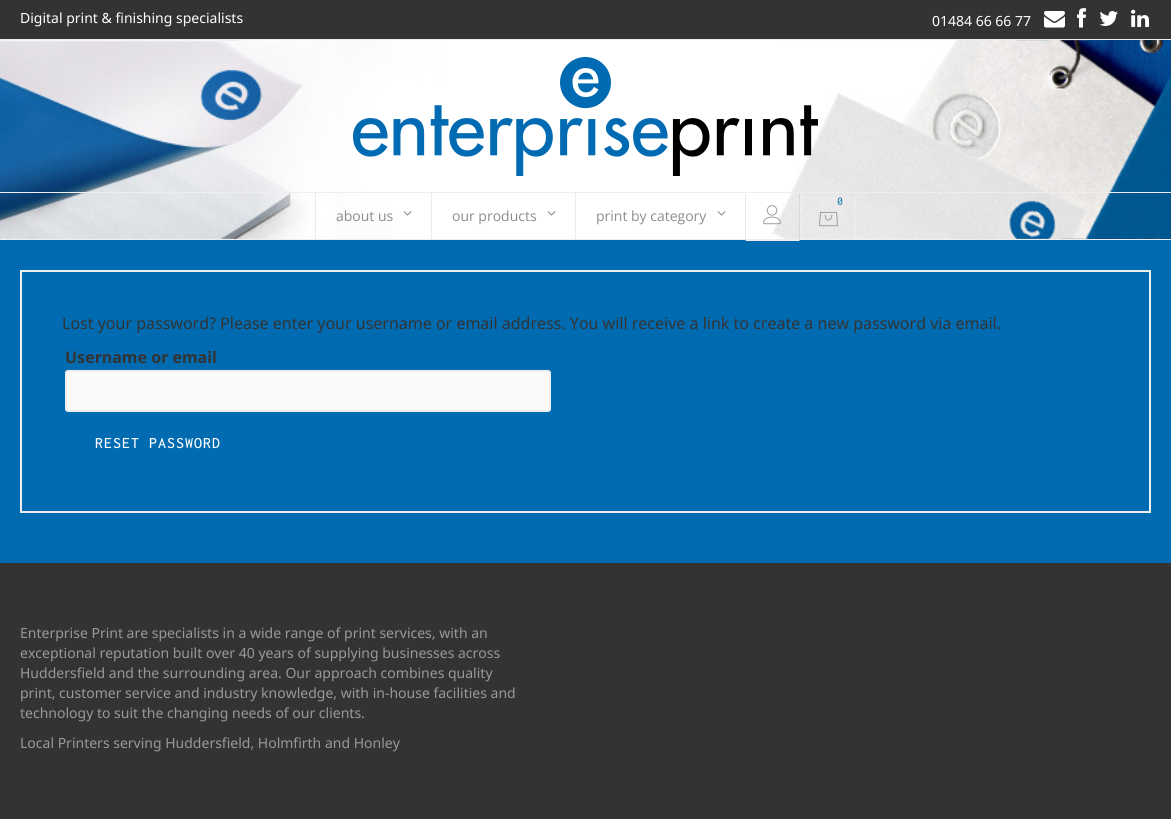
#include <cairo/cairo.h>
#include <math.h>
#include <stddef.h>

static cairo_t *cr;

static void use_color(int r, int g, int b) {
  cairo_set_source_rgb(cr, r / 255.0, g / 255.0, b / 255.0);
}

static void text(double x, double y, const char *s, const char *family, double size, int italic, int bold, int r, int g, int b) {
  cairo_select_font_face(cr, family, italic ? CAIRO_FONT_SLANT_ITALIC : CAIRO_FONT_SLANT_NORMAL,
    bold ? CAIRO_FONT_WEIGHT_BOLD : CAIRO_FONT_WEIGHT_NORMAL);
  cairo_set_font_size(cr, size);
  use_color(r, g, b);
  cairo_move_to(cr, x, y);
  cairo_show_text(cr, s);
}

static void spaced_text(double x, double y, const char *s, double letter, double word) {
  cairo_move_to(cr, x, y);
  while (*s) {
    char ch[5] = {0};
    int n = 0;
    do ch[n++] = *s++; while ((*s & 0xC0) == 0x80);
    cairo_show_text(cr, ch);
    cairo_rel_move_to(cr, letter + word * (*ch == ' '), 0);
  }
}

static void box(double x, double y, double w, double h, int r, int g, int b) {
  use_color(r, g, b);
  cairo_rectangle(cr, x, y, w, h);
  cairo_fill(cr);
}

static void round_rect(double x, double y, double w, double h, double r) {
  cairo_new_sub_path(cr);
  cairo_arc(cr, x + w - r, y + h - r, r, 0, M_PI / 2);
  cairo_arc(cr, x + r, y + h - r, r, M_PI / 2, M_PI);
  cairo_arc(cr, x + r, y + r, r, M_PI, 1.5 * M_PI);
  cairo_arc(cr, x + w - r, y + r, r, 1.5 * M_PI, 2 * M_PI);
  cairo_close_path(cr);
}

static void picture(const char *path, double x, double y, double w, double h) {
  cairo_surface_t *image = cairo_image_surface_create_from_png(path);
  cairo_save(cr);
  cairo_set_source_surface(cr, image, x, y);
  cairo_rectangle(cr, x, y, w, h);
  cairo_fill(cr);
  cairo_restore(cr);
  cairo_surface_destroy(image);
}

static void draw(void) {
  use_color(0, 107, 177);
  cairo_paint(cr);
  box(0, 0, 1171, 39, 51, 51, 51);
  box(0, 39, 1171, 1, 238, 238, 238);
  picture("img_01.png", 1044, 11, 21, 17);
  picture("img_02.png", 1077, 8, 9, 20);
  picture("img_03.png", 1099, 11, 19, 15);
  picture("img_04.png", 1131, 9, 18, 18);
  picture("img_05.png", 0, 40, 1171, 199);
  box(0, 239, 1171, 1, 238, 238, 238);
  picture("img_06.png", 353, 57, 465, 119);
  box(0, 192, 1171, 1, 238, 238, 238);
  cairo_set_source_rgba(cr, 0, 0, 0, 0.08);
  cairo_new_path(cr);
  cairo_move_to(cr, 800, 194);
  cairo_line_to(cr, 800, 241);
  cairo_line_to(cr, 799, 240);
  cairo_line_to(cr, 799, 194);
  cairo_close_path(cr);
  cairo_fill(cr);
  use_color(238, 238, 238);
  cairo_new_path(cr);
  cairo_move_to(cr, 800, 241);
  cairo_line_to(cr, 745, 241);
  cairo_line_to(cr, 746, 240);
  cairo_line_to(cr, 799, 240);
  cairo_close_path(cr);
  cairo_fill(cr);
  cairo_set_source_rgba(cr, 0, 0, 0, 0.08);
  cairo_new_path(cr);
  cairo_move_to(cr, 745, 241);
  cairo_line_to(cr, 745, 194);
  cairo_line_to(cr, 746, 194);
  cairo_line_to(cr, 746, 240);
  cairo_close_path(cr);
  cairo_fill(cr);
  picture("img_07.png", 763, 205, 18, 20);
  box(855, 194, 1, 46, 238, 238, 238);
  box(801, 194, 1, 46, 238, 238, 238);
  picture("img_08.png", 819, 211, 19, 16);
  box(315, 193, 1, 46, 234, 234, 234);
  picture("img_09.png", 403, 211, 9, 5);
  box(431, 193, 1, 46, 235, 235, 235);
  picture("img_09.png", 547, 211, 9, 5);
  box(575, 193, 1, 46, 235, 235, 235);
  picture("img_09.png", 717, 211, 9, 5);
  cairo_rectangle(cr, 21, 271, 1129, 241);
  use_color(238, 238, 238);
  cairo_stroke(cr);
  use_color(250, 250, 250);
  round_rect(66, 371, 484, 40, 2);
  cairo_fill_preserve(cr);
  use_color(238, 238, 238);
  cairo_stroke(cr);
  box(0, 563, 1171, 256, 51, 51, 51);
  text(20, 23, "Digital print & finishing specialists", "Noto Sans", 14, 0, 0, 255, 255, 255);
  text(932, 26, "01484 66 66 77", "Noto Sans", 14, 0, 0, 255, 255, 255);
  text(837, 205, "0", "Inconsolata", 12, 0, 0, 0, 107, 177);
  text(336, 221, "about us", "Open Sans", 14, 0, 0, 140, 140, 140);
  text(452, 221, "our products", "Open Sans", 14, 0, 0, 140, 140, 140);
  text(596, 221, "print by category", "Open Sans", 14, 0, 0, 140, 140, 140);
  text(62, 329, "Lost your password? Please enter your username or email address. You will receive a link to create a new password via email.", "Noto Sans", 16, 0, 0, 51, 51, 51);
  text(65, 363, "Username or email", "Noto Sans", 16, 0, 1, 51, 51, 51);
  cairo_select_font_face(cr, "Inconsolata Medium", CAIRO_FONT_SLANT_NORMAL, CAIRO_FONT_WEIGHT_NORMAL);
  use_color(255, 255, 255);
  spaced_text(95, 448, "RESET PASSWORD", 1, 0);
  text(20, 638, "Enterprise Print are specialists in a wide range of print services, with an", "Noto Sans", 14, 0, 0, 153, 153, 153);
  text(20, 658, "exceptional reputation built over 40 years of supplying businesses across", "Noto Sans", 14, 0, 0, 153, 153, 153);
  text(20, 678, "Huddersfield and the surrounding area. Our approach combines quality", "Noto Sans", 14, 0, 0, 153, 153, 153);
  text(20, 698, "print, customer service and industry knowledge, with in-house facilities and", "Noto Sans", 14, 0, 0, 153, 153, 153);
  text(20, 718, "technology to suit the changing needs of our clients.", "Noto Sans", 14, 0, 0, 153, 153, 153);
  text(20, 748, "Local Printers serving Huddersfield, Holmfirth and Honley", "Noto Sans", 14, 0, 0, 153, 153, 153);
}

int main(void) {
  cairo_surface_t *surface = cairo_image_surface_create(CAIRO_FORMAT_RGB24, 1171, 819);
  cr = cairo_create(surface);
  cairo_font_options_t *options = cairo_font_options_create();
  cairo_font_options_set_hint_metrics(options, CAIRO_HINT_METRICS_OFF);
  cairo_font_options_set_hint_style(options, CAIRO_HINT_STYLE_NONE);
  cairo_set_font_options(cr, options);
  cairo_set_miter_limit(cr, 4);
  draw();
  cairo_surface_write_to_png(surface, "out.png");
  cairo_font_options_destroy(options);
  cairo_destroy(cr);
  cairo_surface_destroy(surface);
  return 0;
}
